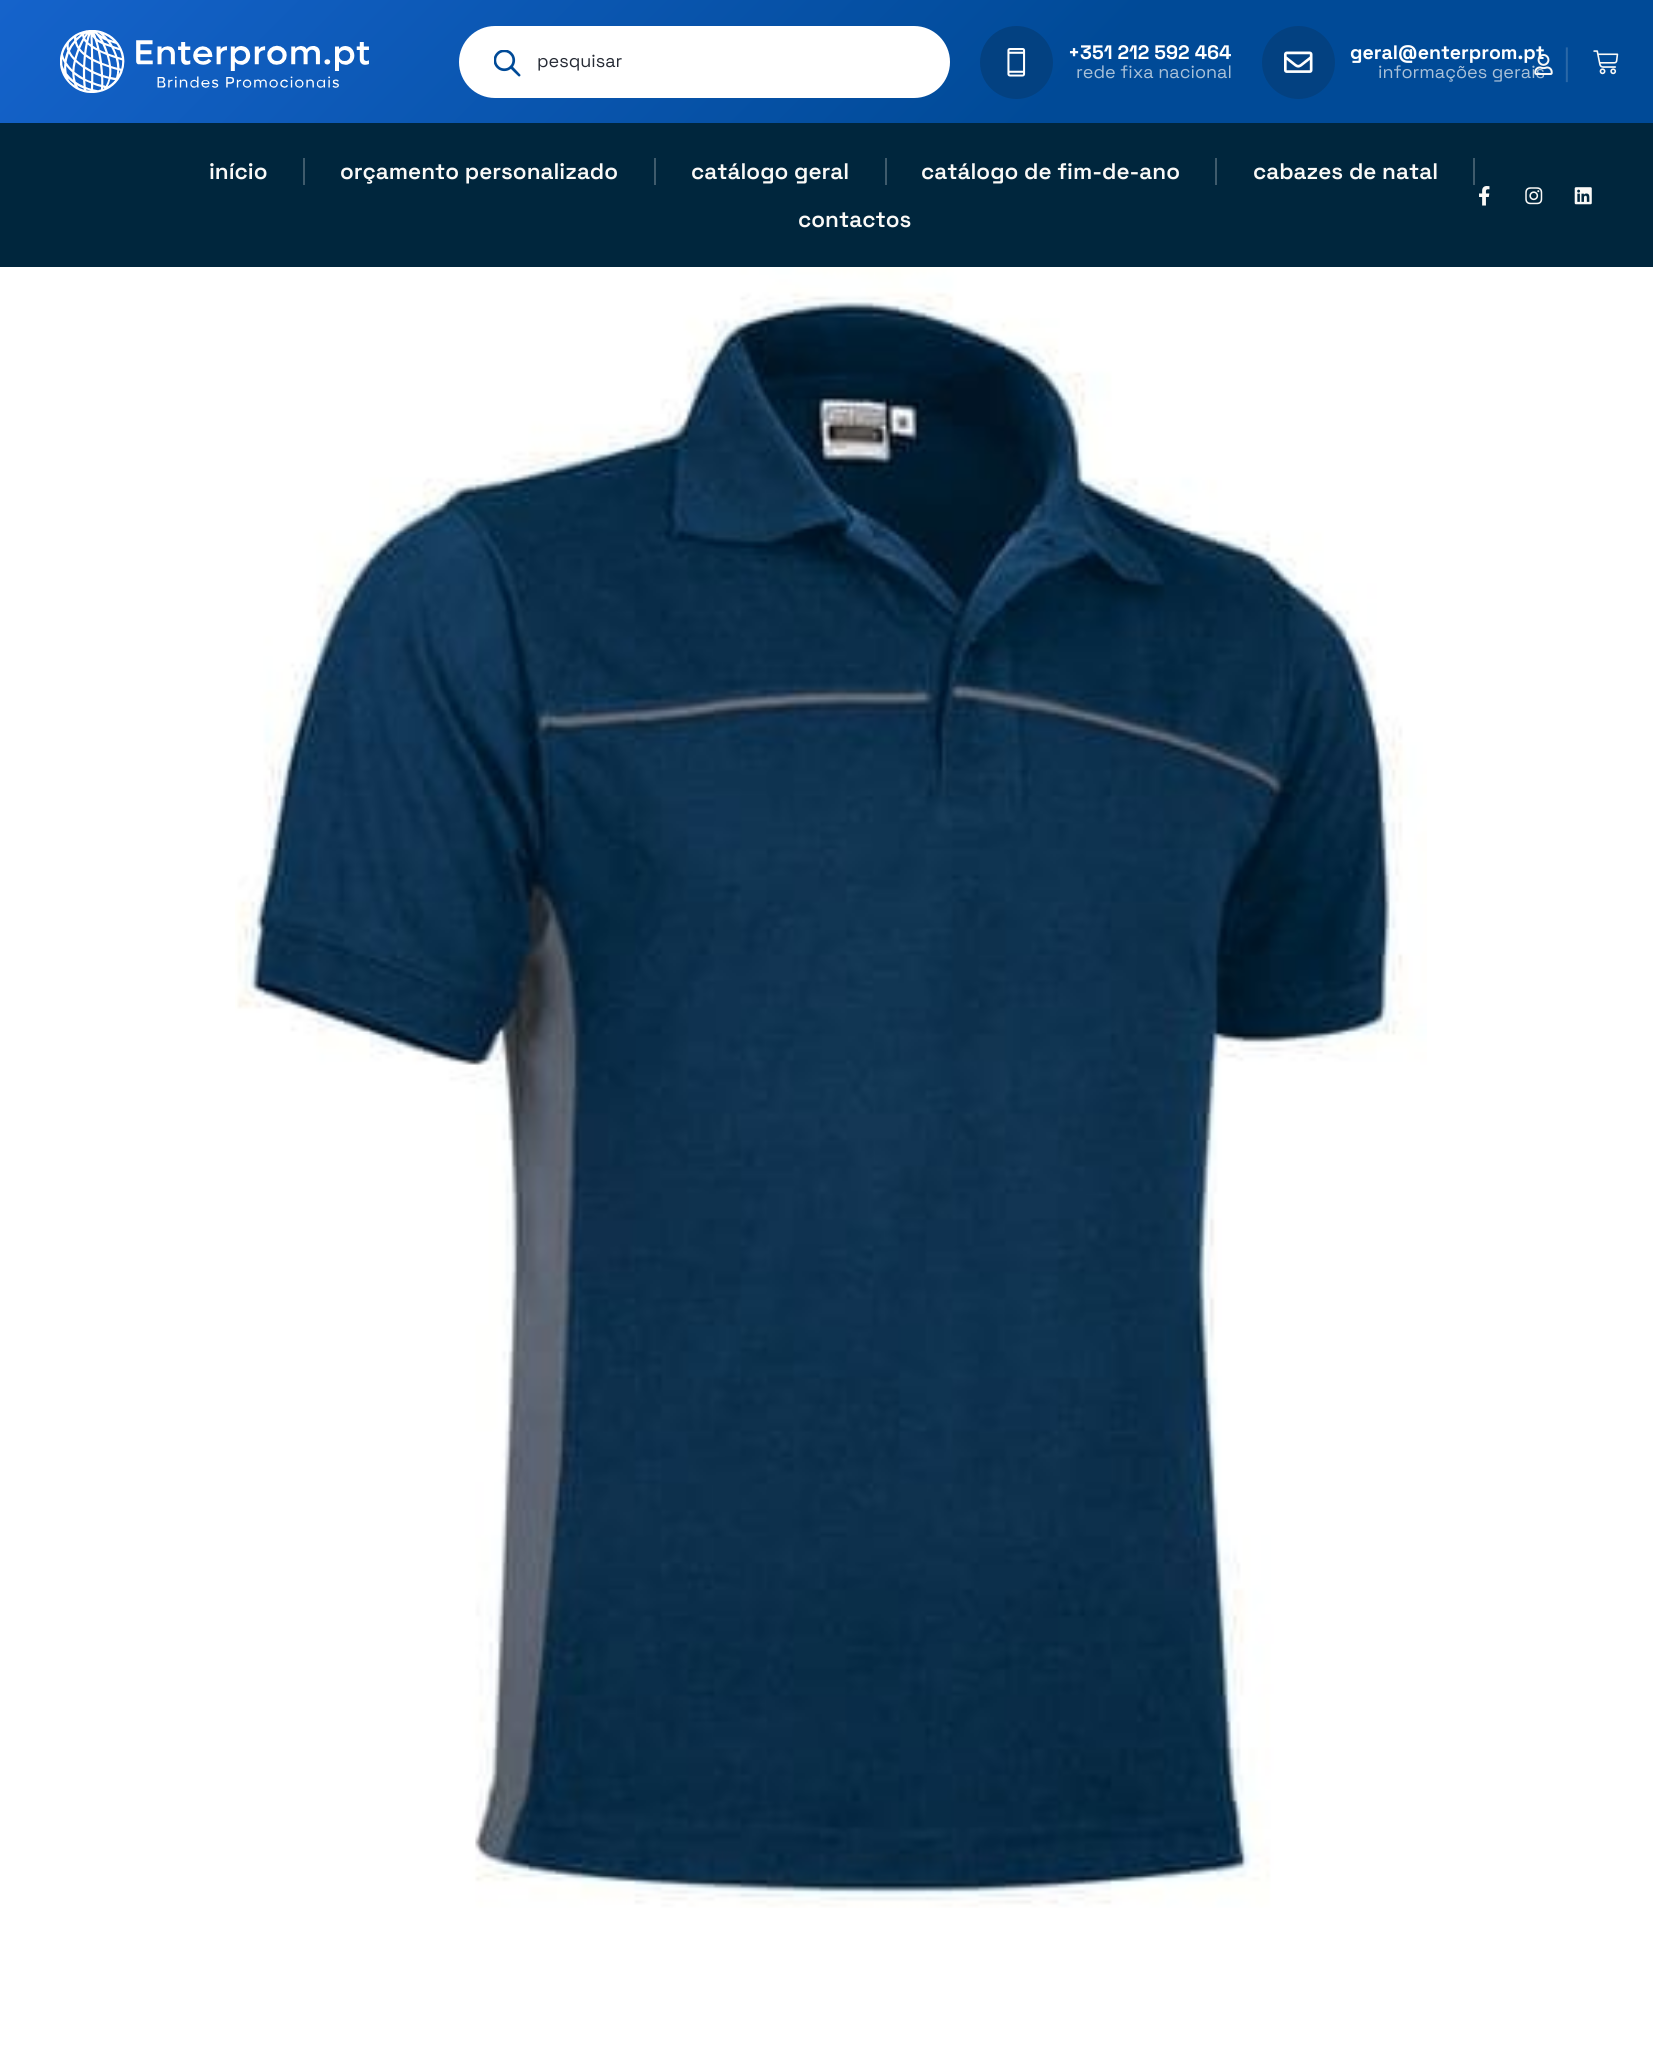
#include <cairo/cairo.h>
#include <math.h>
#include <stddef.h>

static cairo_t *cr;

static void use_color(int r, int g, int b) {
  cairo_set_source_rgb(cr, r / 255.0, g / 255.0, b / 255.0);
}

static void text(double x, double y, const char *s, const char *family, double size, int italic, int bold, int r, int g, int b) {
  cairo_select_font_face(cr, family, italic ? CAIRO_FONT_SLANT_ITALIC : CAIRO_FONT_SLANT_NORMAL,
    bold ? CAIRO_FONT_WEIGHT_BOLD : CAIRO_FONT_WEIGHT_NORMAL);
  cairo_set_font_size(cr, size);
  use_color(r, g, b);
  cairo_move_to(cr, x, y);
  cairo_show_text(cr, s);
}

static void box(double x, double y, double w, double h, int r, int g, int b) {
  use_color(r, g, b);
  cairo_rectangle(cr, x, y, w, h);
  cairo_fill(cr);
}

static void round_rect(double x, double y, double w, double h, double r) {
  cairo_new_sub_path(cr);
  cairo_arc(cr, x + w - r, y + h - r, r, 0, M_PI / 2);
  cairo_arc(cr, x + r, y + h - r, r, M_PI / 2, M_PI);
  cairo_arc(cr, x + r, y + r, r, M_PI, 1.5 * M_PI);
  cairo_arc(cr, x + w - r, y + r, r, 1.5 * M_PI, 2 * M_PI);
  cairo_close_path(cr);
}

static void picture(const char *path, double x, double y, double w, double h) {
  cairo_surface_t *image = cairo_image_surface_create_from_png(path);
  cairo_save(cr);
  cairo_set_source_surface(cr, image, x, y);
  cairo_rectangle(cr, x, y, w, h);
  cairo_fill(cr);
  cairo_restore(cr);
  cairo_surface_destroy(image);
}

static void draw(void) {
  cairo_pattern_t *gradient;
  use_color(255, 255, 255);
  cairo_paint(cr);
  gradient = cairo_pattern_create_linear(382, -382, 1271, 506);
  cairo_pattern_add_color_stop_rgba(gradient, 0, 0.082, 0.388, 0.796, 1);
  cairo_pattern_add_color_stop_rgba(gradient, 0.65, 0, 0.29, 0.592, 1);
  cairo_set_source(cr, gradient);
  cairo_pattern_destroy(gradient);
  cairo_rectangle(cr, 0, 0, 1653, 123);
  cairo_fill(cr);
  picture("img_01.png", 60, 30, 309, 63);
  use_color(255, 255, 255);
  round_rect(459, 26, 491, 72, 36);
  cairo_fill(cr);
  picture("img_02.png", 494, 50, 27, 27);
  use_color(3, 65, 129);
  cairo_arc(cr, 1016.5, 62.5, 36.5, 0, 2 * M_PI);
  cairo_fill(cr);
  picture("img_03.png", 1007, 48, 19, 29);
  cairo_arc(cr, 1298.5, 62.5, 36.5, 0, 2 * M_PI);
  cairo_fill(cr);
  picture("img_04.png", 1284, 51, 29, 22);
  picture("img_06.png", 1593, 50, 26, 25);
  box(0, 123, 1653, 144, 0, 38, 61);
  box(303, 158, 2, 27, 63, 91, 108);
  box(654, 158, 2, 27, 63, 91, 108);
  box(885, 158, 2, 27, 63, 91, 108);
  box(1215, 158, 2, 27, 63, 91, 108);
  box(1473, 158, 2, 27, 63, 91, 108);
  picture("img_07.png", 1479, 186, 11, 20);
  picture("img_08.png", 1525, 187, 18, 18);
  picture("img_09.png", 1574, 187, 18, 18);
  picture("img_10.png", 235, 267, 1192, 1641);
  text(537, 67, "pesquisar", "Space Grotesk", 18, 0, 0, 38, 43, 53);
  text(1068, 59, "+351 212 592 464", "Space Grotesk", 19.5, 0, 1, 255, 255, 255);
  text(1076, 78, "rede fixa nacional", "Space Grotesk", 18, 0, 0, 170, 193, 216);
  text(1350, 59, "geral@enterprom.pt", "Space Grotesk", 19.5, 0, 1, 255, 255, 255);
  text(1378, 78, "informações gerais", "Space Grotesk", 18, 0, 0, 170, 193, 216);
  picture("img_05.png", 1534, 54, 19, 21);
  text(1563, 74, "|", "Space Grotesk Light", 33, 0, 0, 43, 104, 167);
  text(209, 179, "início", "Space Grotesk SemiBold", 22.5, 0, 0, 250, 249, 247);
  text(340, 179, "orçamento personalizado", "Space Grotesk SemiBold", 22.5, 0, 0, 250, 249, 247);
  text(691, 179, "catálogo geral", "Space Grotesk SemiBold", 22.5, 0, 0, 250, 249, 247);
  text(921, 179, "catálogo de fim-de-ano", "Space Grotesk SemiBold", 22.5, 0, 0, 250, 249, 247);
  text(1253, 179, "cabazes de natal", "Space Grotesk SemiBold", 22.5, 0, 0, 250, 249, 247);
  text(798, 227, "contactos", "Space Grotesk SemiBold", 22.5, 0, 0, 250, 249, 247);
}

int main(void) {
  cairo_surface_t *surface = cairo_image_surface_create(CAIRO_FORMAT_RGB24, 1653, 2047);
  cr = cairo_create(surface);
  cairo_font_options_t *options = cairo_font_options_create();
  cairo_font_options_set_hint_metrics(options, CAIRO_HINT_METRICS_OFF);
  cairo_font_options_set_hint_style(options, CAIRO_HINT_STYLE_NONE);
  cairo_set_font_options(cr, options);
  cairo_set_miter_limit(cr, 4);
  draw();
  cairo_surface_write_to_png(surface, "out.png");
  cairo_font_options_destroy(options);
  cairo_destroy(cr);
  cairo_surface_destroy(surface);
  return 0;
}
